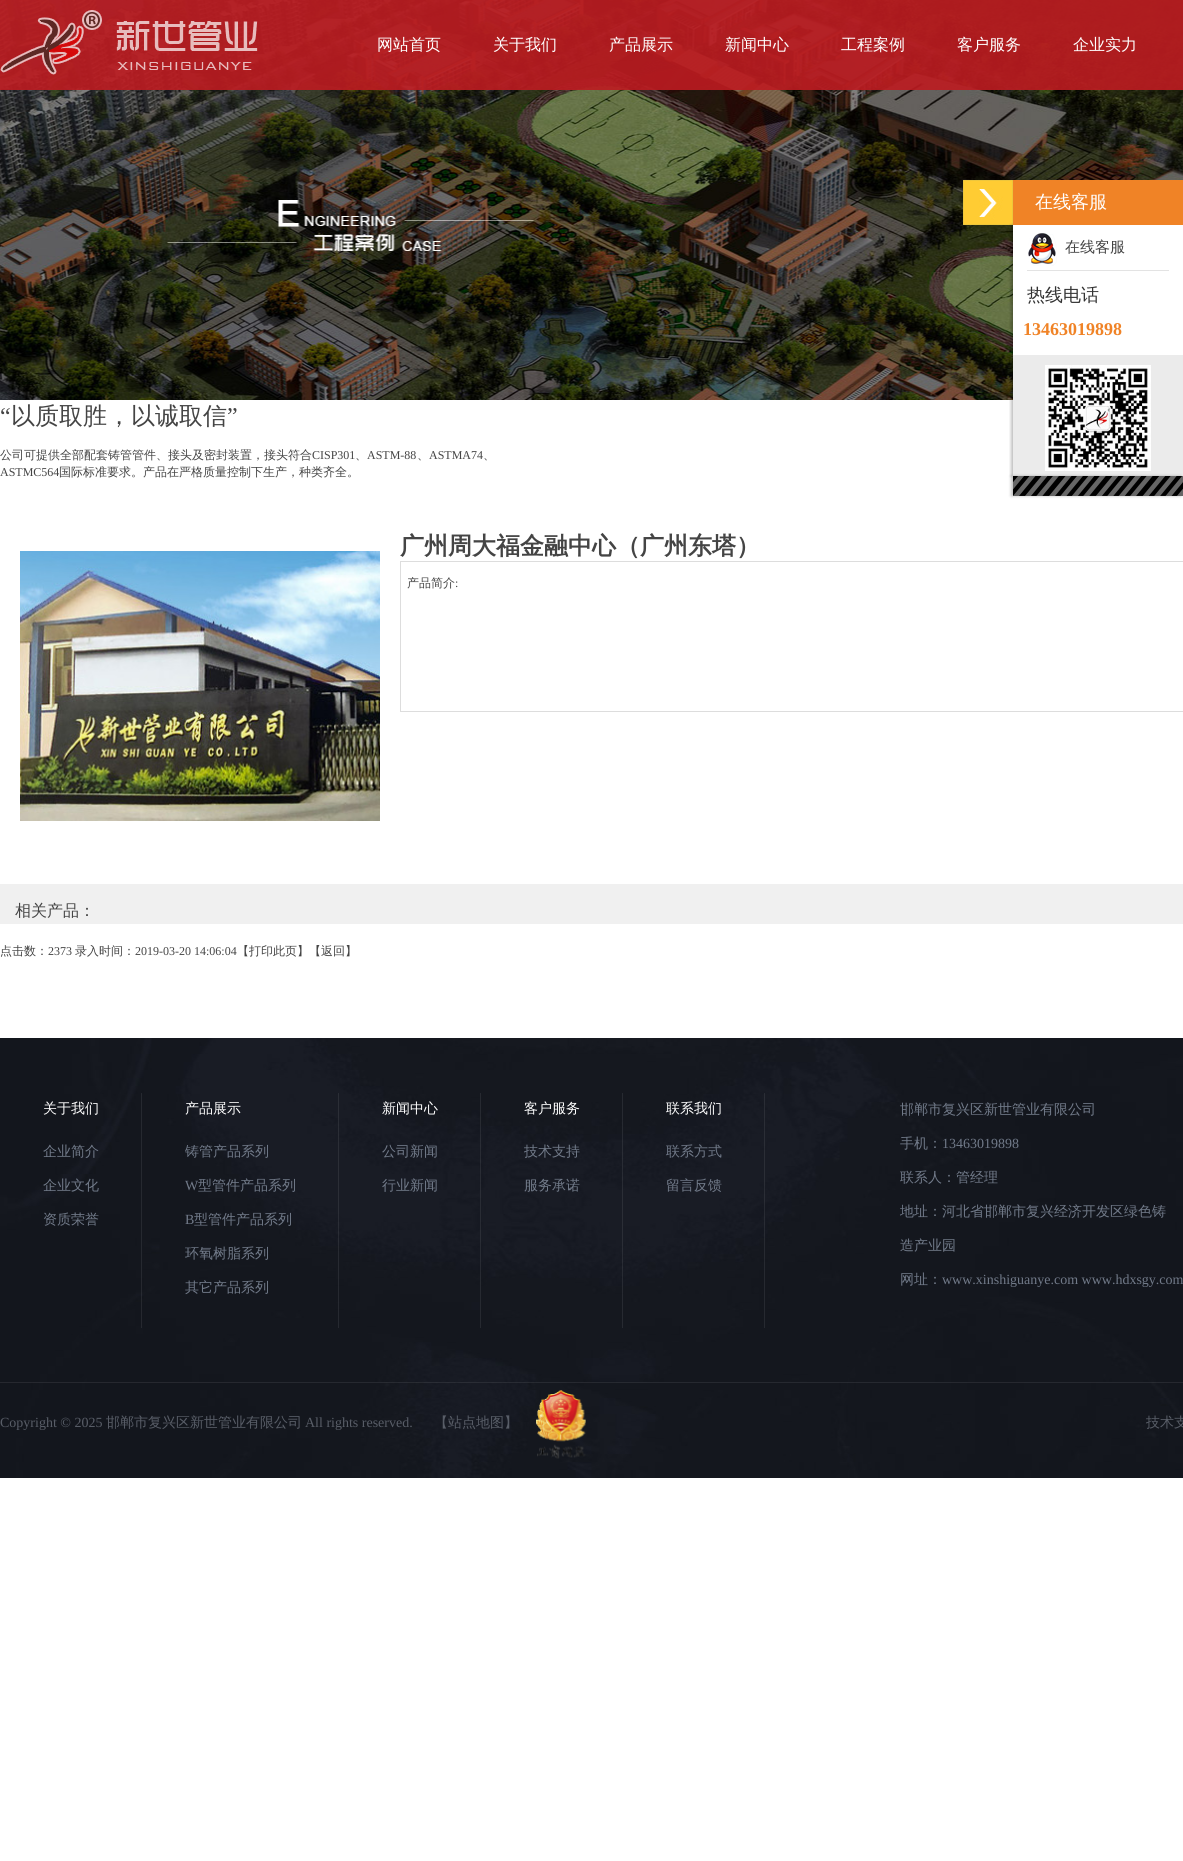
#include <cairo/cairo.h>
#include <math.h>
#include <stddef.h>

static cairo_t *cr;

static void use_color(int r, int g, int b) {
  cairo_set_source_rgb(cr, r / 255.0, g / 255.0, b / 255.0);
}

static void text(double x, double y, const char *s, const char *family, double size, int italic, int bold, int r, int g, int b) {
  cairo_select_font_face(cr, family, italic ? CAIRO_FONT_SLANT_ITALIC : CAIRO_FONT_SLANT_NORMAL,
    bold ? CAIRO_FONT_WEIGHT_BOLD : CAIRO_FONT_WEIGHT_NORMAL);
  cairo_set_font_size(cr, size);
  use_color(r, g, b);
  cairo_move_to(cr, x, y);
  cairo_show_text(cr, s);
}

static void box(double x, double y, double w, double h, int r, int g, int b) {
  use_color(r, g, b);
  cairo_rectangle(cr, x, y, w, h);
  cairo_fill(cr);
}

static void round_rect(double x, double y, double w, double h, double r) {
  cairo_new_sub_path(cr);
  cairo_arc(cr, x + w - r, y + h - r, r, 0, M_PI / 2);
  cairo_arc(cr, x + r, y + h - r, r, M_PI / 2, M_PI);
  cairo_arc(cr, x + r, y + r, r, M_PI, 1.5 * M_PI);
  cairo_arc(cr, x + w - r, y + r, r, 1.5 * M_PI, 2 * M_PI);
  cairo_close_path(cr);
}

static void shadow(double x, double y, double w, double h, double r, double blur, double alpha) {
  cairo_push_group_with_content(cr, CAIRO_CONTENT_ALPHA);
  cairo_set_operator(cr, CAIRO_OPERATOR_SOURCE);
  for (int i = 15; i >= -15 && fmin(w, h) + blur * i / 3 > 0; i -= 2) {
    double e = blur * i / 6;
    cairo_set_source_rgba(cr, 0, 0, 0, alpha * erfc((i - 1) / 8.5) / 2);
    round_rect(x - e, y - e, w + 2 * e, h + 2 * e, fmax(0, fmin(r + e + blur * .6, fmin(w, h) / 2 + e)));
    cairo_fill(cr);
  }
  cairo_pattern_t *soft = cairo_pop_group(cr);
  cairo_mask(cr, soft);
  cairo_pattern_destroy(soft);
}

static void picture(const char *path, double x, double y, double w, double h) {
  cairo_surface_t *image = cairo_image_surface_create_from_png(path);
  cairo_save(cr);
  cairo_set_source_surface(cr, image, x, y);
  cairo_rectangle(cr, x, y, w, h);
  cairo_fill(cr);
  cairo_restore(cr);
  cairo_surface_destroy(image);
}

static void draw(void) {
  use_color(255, 255, 255);
  cairo_paint(cr);
  picture("img_01.png", 0, 0, 1183, 400);
  cairo_set_source_rgba(cr, 0.741, 0.106, 0.129, 0.9);
  cairo_rectangle(cr, 0, 0, 1183, 90);
  cairo_fill(cr);
  picture("img_02.png", 0, 10, 258, 65);
  picture("img_03.png", 963, 180, 50, 45);
  box(1013, 225, 170, 130, 255, 255, 255);
  cairo_save(cr);
  cairo_rectangle(cr, 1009, 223, 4, 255);
  cairo_clip(cr);
  use_color(0, 0, 0);
  shadow(1011, 225, 170, 251, 0, 1.5, 0.25);
  cairo_restore(cr);
  box(1013, 180, 170, 45, 240, 131, 38);
  box(1027, 270, 142, 1, 227, 227, 227);
  picture("img_04.png", 1028, 233, 29, 33);
  box(1013, 355, 170, 121, 235, 235, 235);
  use_color(0, 0, 0);
  shadow(1011, 476, 170, 20, 0, 1.5, 0.25);
  picture("img_05.png", 1045, 365, 106, 106);
  picture("img_06.png", 1013, 476, 170, 20);
  picture("img_07.png", 20, 551, 360, 270);
  cairo_rectangle(cr, 400.5, 561.5, 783, 150);
  use_color(221, 221, 221);
  cairo_set_line_width(cr, 1);
  cairo_stroke(cr);
  box(0, 884, 1183, 40, 240, 240, 240);
  picture("img_08.png", 0, 1038, 1183, 440);
  cairo_set_source_rgba(cr, 1, 1, 1, 0.08);
  cairo_rectangle(cr, 0, 1382, 1183, 1);
  cairo_fill(cr);
  cairo_rectangle(cr, 141, 1093, 1, 235);
  cairo_fill(cr);
  cairo_rectangle(cr, 338, 1093, 1, 235);
  cairo_fill(cr);
  cairo_rectangle(cr, 480, 1093, 1, 235);
  cairo_fill(cr);
  cairo_rectangle(cr, 622, 1093, 1, 235);
  cairo_fill(cr);
  cairo_rectangle(cr, 764, 1093, 1, 235);
  cairo_fill(cr);
  picture("img_09.png", 536, 1390, 50, 69);
  text(377, 50, "网站首页", "WenQuanYi Zen Hei Medium", 16, 0, 0, 255, 255, 255);
  text(493, 50, "关于我们", "WenQuanYi Zen Hei Medium", 16, 0, 0, 255, 255, 255);
  text(609, 50, "产品展示", "WenQuanYi Zen Hei Medium", 16, 0, 0, 255, 255, 255);
  text(725, 50, "新闻中心", "WenQuanYi Zen Hei Medium", 16, 0, 0, 255, 255, 255);
  text(841, 50, "工程案例", "WenQuanYi Zen Hei Medium", 16, 0, 0, 255, 255, 255);
  text(957, 50, "客户服务", "WenQuanYi Zen Hei Medium", 16, 0, 0, 255, 255, 255);
  text(1073, 50, "企业实力", "WenQuanYi Zen Hei Medium", 16, 0, 0, 255, 255, 255);
  text(1035, 208, "在线客服", "WenQuanYi Zen Hei Medium", 18, 0, 0, 255, 255, 255);
  text(1065, 252, "在线客服", "WenQuanYi Zen Hei Medium", 15, 0, 0, 68, 68, 68);
  text(1027, 301, "热线电话", "WenQuanYi Zen Hei Medium", 18, 0, 0, 51, 51, 51);
  text(1023, 335, "13463019898", "Liberation Serif", 18, 0, 1, 240, 131, 38);
  text(0, 424, "“", "Liberation Serif", 24, 0, 0, 68, 68, 68);
  text(11, 424, "以质取胜，以诚取信", "WenQuanYi Zen Hei Medium", 24, 0, 0, 68, 68, 68);
  text(227, 424, "”", "Liberation Serif", 24, 0, 0, 68, 68, 68);
  text(0, 459, "公司可提供全部配套铸管管件、接头及密封装置，接头符合", "WenQuanYi Zen Hei Medium", 12, 0, 0, 68, 68, 68);
  text(312, 459, "CISP301", "Liberation Serif", 12, 0, 0, 68, 68, 68);
  text(355, 459, "、", "WenQuanYi Zen Hei Medium", 12, 0, 0, 68, 68, 68);
  text(367, 459, "ASTM-88", "Liberation Serif", 12, 0, 0, 68, 68, 68);
  text(417, 459, "、", "WenQuanYi Zen Hei Medium", 12, 0, 0, 68, 68, 68);
  text(429, 459, "ASTMA74", "Liberation Serif", 12, 0, 0, 68, 68, 68);
  text(483, 459, "、", "WenQuanYi Zen Hei Medium", 12, 0, 0, 68, 68, 68);
  text(0, 476, "ASTMC564", "Liberation Serif", 12, 0, 0, 68, 68, 68);
  text(59, 476, "国际标准要求。产品在严格质量控制下生产，种类齐全。", "WenQuanYi Zen Hei Medium", 12, 0, 0, 68, 68, 68);
  text(400, 554, "广州周大福金融中心（广州东塔）", "WenQuanYi Zen Hei", 24, 0, 1, 68, 68, 68);
  text(407, 587, "产品简介", "WenQuanYi Zen Hei Medium", 12, 0, 0, 68, 68, 68);
  text(455, 587, ":", "Liberation Serif", 12, 0, 0, 68, 68, 68);
  text(15, 916, "相关产品：", "WenQuanYi Zen Hei Medium", 16, 0, 0, 68, 68, 68);
  text(0, 955, "点击数：", "WenQuanYi Zen Hei Medium", 12, 0, 0, 68, 68, 68);
  text(48, 955, "2373", "Liberation Serif", 12, 0, 0, 68, 68, 68);
  text(75, 955, "录入时间：", "WenQuanYi Zen Hei Medium", 12, 0, 0, 68, 68, 68);
  text(135, 955, "2019-03-20 14:06:04", "Liberation Serif", 12, 0, 0, 68, 68, 68);
  text(237, 955, "【打印此页】【返回】", "WenQuanYi Zen Hei Medium", 12, 0, 0, 68, 68, 68);
  text(43, 1113, "关于我们", "WenQuanYi Zen Hei Medium", 14, 0, 0, 255, 255, 255);
  text(43, 1156, "企业简介", "WenQuanYi Zen Hei Medium", 14, 0, 0, 113, 122, 137);
  text(43, 1190, "企业文化", "WenQuanYi Zen Hei Medium", 14, 0, 0, 113, 122, 137);
  text(43, 1224, "资质荣誉", "WenQuanYi Zen Hei Medium", 14, 0, 0, 113, 122, 137);
  text(185, 1113, "产品展示", "WenQuanYi Zen Hei Medium", 14, 0, 0, 255, 255, 255);
  text(185, 1156, "铸管产品系列", "WenQuanYi Zen Hei Medium", 14, 0, 0, 113, 122, 137);
  text(185, 1190, "W", "Liberation Serif", 14, 0, 0, 113, 122, 137);
  text(198, 1190, "型管件产品系列", "WenQuanYi Zen Hei Medium", 14, 0, 0, 113, 122, 137);
  text(185, 1224, "B", "Liberation Serif", 14, 0, 0, 113, 122, 137);
  text(194, 1224, "型管件产品系列", "WenQuanYi Zen Hei Medium", 14, 0, 0, 113, 122, 137);
  text(185, 1258, "环氧树脂系列", "WenQuanYi Zen Hei Medium", 14, 0, 0, 113, 122, 137);
  text(185, 1292, "其它产品系列", "WenQuanYi Zen Hei Medium", 14, 0, 0, 113, 122, 137);
  text(382, 1113, "新闻中心", "WenQuanYi Zen Hei Medium", 14, 0, 0, 255, 255, 255);
  text(382, 1156, "公司新闻", "WenQuanYi Zen Hei Medium", 14, 0, 0, 113, 122, 137);
  text(382, 1190, "行业新闻", "WenQuanYi Zen Hei Medium", 14, 0, 0, 113, 122, 137);
  text(524, 1113, "客户服务", "WenQuanYi Zen Hei Medium", 14, 0, 0, 255, 255, 255);
  text(524, 1156, "技术支持", "WenQuanYi Zen Hei Medium", 14, 0, 0, 113, 122, 137);
  text(524, 1190, "服务承诺", "WenQuanYi Zen Hei Medium", 14, 0, 0, 113, 122, 137);
  text(666, 1113, "联系我们", "WenQuanYi Zen Hei Medium", 14, 0, 0, 255, 255, 255);
  text(666, 1156, "联系方式", "WenQuanYi Zen Hei Medium", 14, 0, 0, 113, 122, 137);
  text(666, 1190, "留言反馈", "WenQuanYi Zen Hei Medium", 14, 0, 0, 113, 122, 137);
  text(900, 1114, "邯郸市复兴区新世管业有限公司", "WenQuanYi Zen Hei Medium", 14, 0, 0, 113, 122, 137);
  text(900, 1148, "手机：", "WenQuanYi Zen Hei Medium", 14, 0, 0, 113, 122, 137);
  text(942, 1148, "13463019898", "Liberation Serif", 14, 0, 0, 113, 122, 137);
  text(900, 1182, "联系人：管经理", "WenQuanYi Zen Hei Medium", 14, 0, 0, 113, 122, 137);
  text(900, 1216, "地址：河北省邯郸市复兴经济开发区绿色铸", "WenQuanYi Zen Hei Medium", 14, 0, 0, 113, 122, 137);
  text(900, 1250, "造产业园", "WenQuanYi Zen Hei Medium", 14, 0, 0, 113, 122, 137);
  text(900, 1284, "网址：", "WenQuanYi Zen Hei Medium", 14, 0, 0, 113, 122, 137);
  text(942, 1284, "www.xinshiguanye.com www.hdxsgy.com", "Liberation Serif", 14, 0, 0, 113, 122, 137);
  text(0, 1427, "Copyright © 2025", "Liberation Serif", 14, 0, 0, 88, 93, 103);
  text(106, 1427, "邯郸市复兴区新世管业有限公司", "WenQuanYi Zen Hei Medium", 14, 0, 0, 88, 93, 103);
  text(305, 1427, "All rights reserved.", "Liberation Serif", 14, 0, 0, 88, 93, 103);
  text(434, 1427, "【站点地图】", "WenQuanYi Zen Hei Medium", 14, 0, 0, 88, 93, 103);
  text(1146, 1427, "技术支", "WenQuanYi Zen Hei Medium", 14, 0, 0, 88, 93, 103);
}

int main(void) {
  cairo_surface_t *surface = cairo_image_surface_create(CAIRO_FORMAT_RGB24, 1183, 1861);
  cr = cairo_create(surface);
  cairo_font_options_t *options = cairo_font_options_create();
  cairo_font_options_set_hint_metrics(options, CAIRO_HINT_METRICS_OFF);
  cairo_font_options_set_hint_style(options, CAIRO_HINT_STYLE_NONE);
  cairo_set_font_options(cr, options);
  cairo_set_miter_limit(cr, 4);
  draw();
  cairo_surface_write_to_png(surface, "out.png");
  cairo_font_options_destroy(options);
  cairo_destroy(cr);
  cairo_surface_destroy(surface);
  return 0;
}
